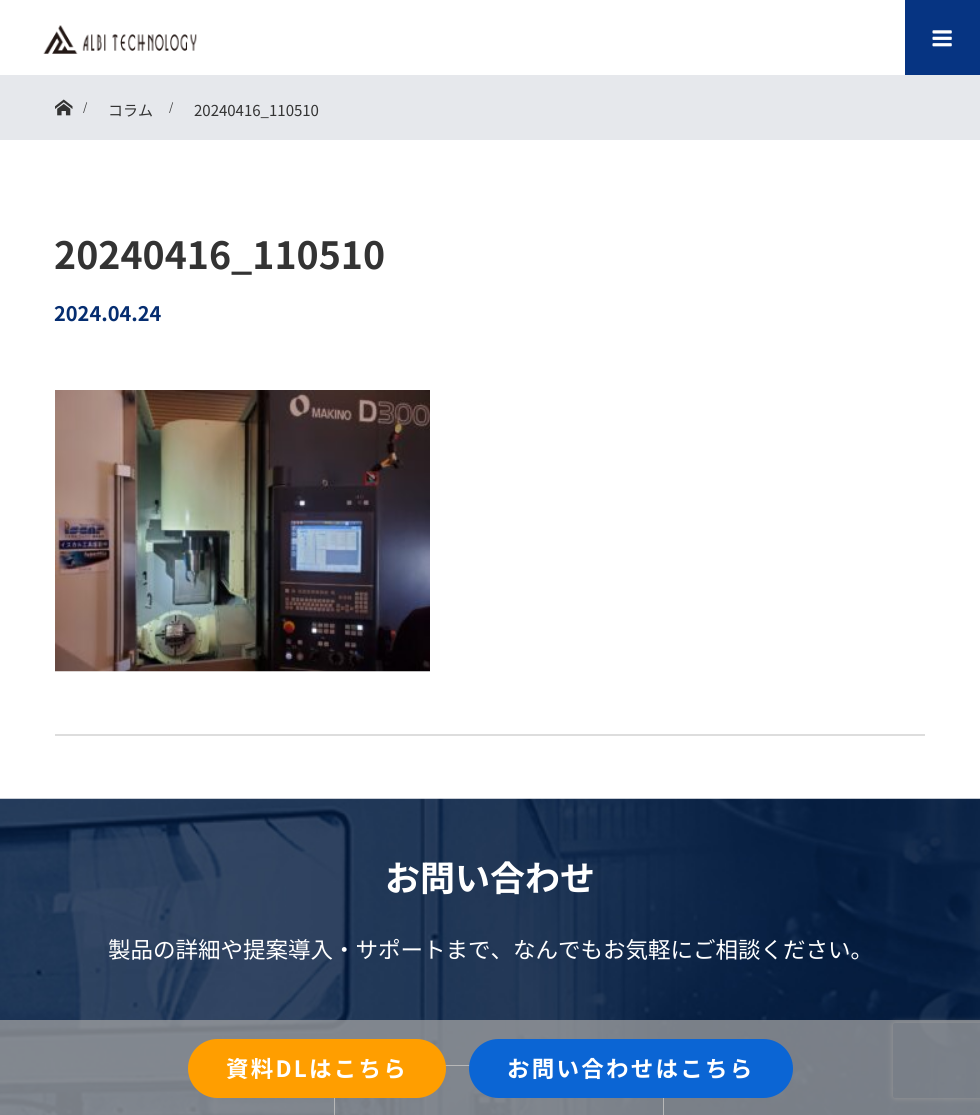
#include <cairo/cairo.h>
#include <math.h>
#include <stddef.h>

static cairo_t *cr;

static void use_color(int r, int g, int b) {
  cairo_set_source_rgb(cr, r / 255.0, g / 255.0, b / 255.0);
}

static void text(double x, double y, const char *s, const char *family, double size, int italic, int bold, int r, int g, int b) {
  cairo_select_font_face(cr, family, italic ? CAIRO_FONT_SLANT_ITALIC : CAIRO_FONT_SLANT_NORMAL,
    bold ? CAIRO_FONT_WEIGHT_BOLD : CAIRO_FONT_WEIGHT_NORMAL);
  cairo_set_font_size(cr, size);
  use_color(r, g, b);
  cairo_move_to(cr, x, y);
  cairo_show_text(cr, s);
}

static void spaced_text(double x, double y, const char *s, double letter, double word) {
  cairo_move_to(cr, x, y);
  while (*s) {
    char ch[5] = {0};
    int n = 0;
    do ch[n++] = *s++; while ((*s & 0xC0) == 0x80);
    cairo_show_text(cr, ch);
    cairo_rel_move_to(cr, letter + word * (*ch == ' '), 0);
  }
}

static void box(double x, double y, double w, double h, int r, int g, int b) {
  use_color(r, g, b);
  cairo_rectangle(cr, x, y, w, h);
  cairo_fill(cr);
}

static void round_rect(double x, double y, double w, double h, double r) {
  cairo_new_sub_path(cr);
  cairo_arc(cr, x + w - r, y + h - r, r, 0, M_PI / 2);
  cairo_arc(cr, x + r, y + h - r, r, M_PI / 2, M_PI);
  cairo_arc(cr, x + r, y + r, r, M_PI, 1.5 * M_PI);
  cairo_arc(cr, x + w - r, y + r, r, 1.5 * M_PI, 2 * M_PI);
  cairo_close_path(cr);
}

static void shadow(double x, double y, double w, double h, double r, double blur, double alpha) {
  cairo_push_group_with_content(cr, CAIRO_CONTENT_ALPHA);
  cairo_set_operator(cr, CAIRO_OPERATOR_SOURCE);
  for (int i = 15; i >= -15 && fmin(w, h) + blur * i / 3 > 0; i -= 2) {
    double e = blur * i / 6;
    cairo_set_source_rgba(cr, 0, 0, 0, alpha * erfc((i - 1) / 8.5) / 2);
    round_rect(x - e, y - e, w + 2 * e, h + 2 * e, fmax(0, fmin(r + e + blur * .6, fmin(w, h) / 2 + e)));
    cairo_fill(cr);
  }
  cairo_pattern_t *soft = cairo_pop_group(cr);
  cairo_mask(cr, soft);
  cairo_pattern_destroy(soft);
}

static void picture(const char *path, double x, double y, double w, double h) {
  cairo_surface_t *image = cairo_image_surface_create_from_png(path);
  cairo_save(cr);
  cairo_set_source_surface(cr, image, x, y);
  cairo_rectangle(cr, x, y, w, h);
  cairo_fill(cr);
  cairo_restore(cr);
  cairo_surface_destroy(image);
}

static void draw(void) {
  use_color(255, 255, 255);
  cairo_paint(cr);
  picture("img_01.png", 43, 25, 154, 29);
  box(905, 0, 75, 75, 6, 52, 130);
  picture("img_02.png", 932, 30, 20, 17);
  box(0, 75, 980, 65, 230, 232, 236);
  picture("img_03.png", 55, 99, 18, 17);
  picture("img_04.png", 55, 390, 375, 282);
  box(55, 734, 870, 2, 221, 221, 221);
  picture("img_05.png", 0, 798, 980, 317);
  cairo_rectangle(cr, 334.5, 1065.5, 329, 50);
  use_color(255, 255, 255);
  cairo_set_line_width(cr, 1);
  cairo_stroke(cr);
  cairo_save(cr);
  cairo_set_fill_rule(cr, CAIRO_FILL_RULE_EVEN_ODD);
  cairo_new_path(cr);
  cairo_move_to(cr, 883, 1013);
  cairo_line_to(cr, 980, 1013);
  cairo_line_to(cr, 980, 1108);
  cairo_line_to(cr, 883, 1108);
  cairo_close_path(cr);
  cairo_move_to(cr, 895.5, 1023);
  cairo_line_to(cr, 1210.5, 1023);
  cairo_curve_to(cr, 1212, 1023, 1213, 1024, 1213, 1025.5);
  cairo_line_to(cr, 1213, 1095.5);
  cairo_curve_to(cr, 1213, 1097, 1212, 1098, 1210.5, 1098);
  cairo_line_to(cr, 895.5, 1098);
  cairo_curve_to(cr, 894, 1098, 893, 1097, 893, 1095.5);
  cairo_line_to(cr, 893, 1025.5);
  cairo_curve_to(cr, 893, 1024, 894, 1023, 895.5, 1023);
  cairo_close_path(cr);
  cairo_clip(cr);
  use_color(128, 128, 128);
  shadow(893, 1023, 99, 75, 2.5, 3, 1);
  cairo_restore(cr);
  cairo_set_source_rgba(cr, 0.627, 0.627, 0.627, 0.75);
  cairo_rectangle(cr, 0, 1020, 980, 95);
  cairo_fill(cr);
  use_color(255, 158, 0);
  round_rect(188, 1039, 258, 59, 29.5);
  cairo_fill(cr);
  use_color(11, 101, 212);
  round_rect(469, 1039, 324, 59, 29.5);
  cairo_fill(cr);
  text(83, 111, "/", "Noto Sans JP", 11, 0, 0, 51, 51, 51);
  text(108, 116, "コラム", "Noto Sans JP", 15, 0, 0, 51, 51, 51);
  text(169, 111, "/", "Noto Sans JP", 11, 0, 0, 51, 51, 51);
  text(194, 116, "20240416_110510", "Noto Sans JP", 15, 0, 0, 51, 51, 51);
  text(54, 269, "20240416_110510", "Noto Sans JP", 37.5, 0, 1, 51, 51, 51);
  text(54, 321, "2024.04.24", "Noto Sans JP", 20, 0, 1, 5, 45, 112);
  text(385, 891, "お問い合わせ", "Noto Sans JP", 35, 0, 1, 255, 255, 255);
  text(108, 958, "製品の詳細や提案導入・サポートまで、なんでもお気軽にご相談ください。", "Noto Sans JP", 22.5, 0, 0, 255, 255, 255);
  cairo_select_font_face(cr, "Noto Sans JP", CAIRO_FONT_SLANT_NORMAL, CAIRO_FONT_WEIGHT_BOLD);
  spaced_text(226, 1077, "資料DLはこちら", 2.25, 0);
  spaced_text(507, 1077, "お問い合わせはこちら", 2.25, 0);
}

int main(void) {
  cairo_surface_t *surface = cairo_image_surface_create(CAIRO_FORMAT_RGB24, 980, 1115);
  cr = cairo_create(surface);
  cairo_font_options_t *options = cairo_font_options_create();
  cairo_font_options_set_hint_metrics(options, CAIRO_HINT_METRICS_OFF);
  cairo_font_options_set_hint_style(options, CAIRO_HINT_STYLE_NONE);
  cairo_set_font_options(cr, options);
  cairo_set_miter_limit(cr, 4);
  draw();
  cairo_surface_write_to_png(surface, "out.png");
  cairo_font_options_destroy(options);
  cairo_destroy(cr);
  cairo_surface_destroy(surface);
  return 0;
}
